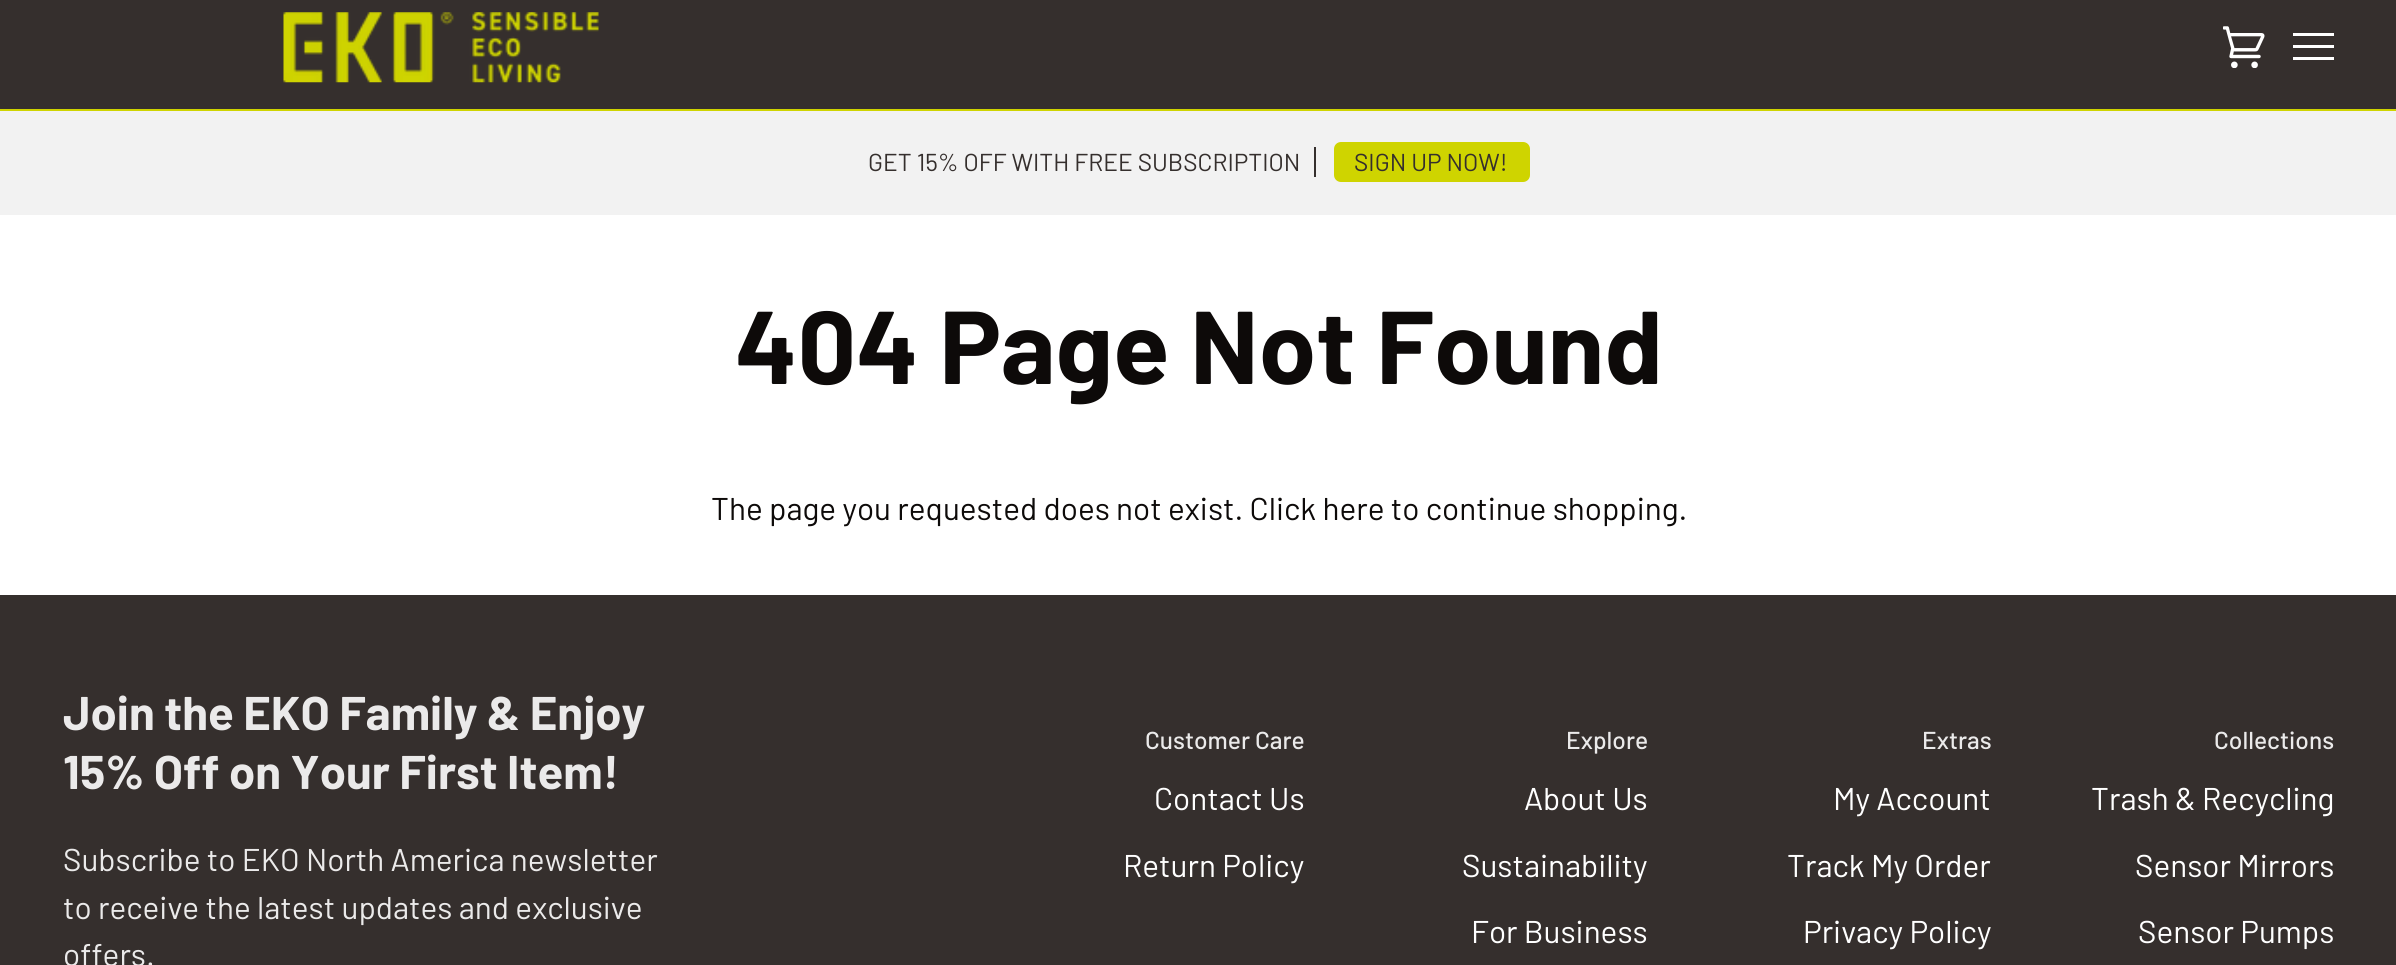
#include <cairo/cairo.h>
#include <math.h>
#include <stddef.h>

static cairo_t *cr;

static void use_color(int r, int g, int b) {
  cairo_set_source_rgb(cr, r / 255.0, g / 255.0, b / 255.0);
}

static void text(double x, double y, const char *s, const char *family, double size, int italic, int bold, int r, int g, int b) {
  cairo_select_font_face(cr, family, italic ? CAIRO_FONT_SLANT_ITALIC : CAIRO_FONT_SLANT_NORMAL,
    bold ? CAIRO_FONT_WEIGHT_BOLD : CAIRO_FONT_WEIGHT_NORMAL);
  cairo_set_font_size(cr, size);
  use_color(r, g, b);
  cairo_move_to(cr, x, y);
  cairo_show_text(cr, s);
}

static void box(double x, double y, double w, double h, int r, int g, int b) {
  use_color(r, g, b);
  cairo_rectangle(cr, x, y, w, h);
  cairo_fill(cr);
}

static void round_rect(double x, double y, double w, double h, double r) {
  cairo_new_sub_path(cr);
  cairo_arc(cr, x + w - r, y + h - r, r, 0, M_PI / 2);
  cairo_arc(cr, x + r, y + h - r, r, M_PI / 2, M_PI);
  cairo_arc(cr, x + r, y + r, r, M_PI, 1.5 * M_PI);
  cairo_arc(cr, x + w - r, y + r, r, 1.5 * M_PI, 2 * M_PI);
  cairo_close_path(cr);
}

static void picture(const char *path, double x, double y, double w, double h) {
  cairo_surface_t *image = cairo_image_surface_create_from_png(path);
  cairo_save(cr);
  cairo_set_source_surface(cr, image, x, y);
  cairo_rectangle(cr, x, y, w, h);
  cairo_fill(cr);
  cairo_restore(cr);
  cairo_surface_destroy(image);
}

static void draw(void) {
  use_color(255, 255, 255);
  cairo_paint(cr);
  box(0, 0, 2396, 109, 53, 47, 45);
  box(0, 109, 2396, 2, 207, 212, 0);
  picture("img_01.png", 283, 12, 316, 71);
  picture("img_02.png", 2223, 26, 42, 42);
  cairo_save(cr);
  cairo_rectangle(cr, 2293, 26, 42, 42);
  cairo_clip(cr);
  use_color(255, 255, 255);
  cairo_new_path(cr);
  cairo_move_to(cr, 2292, 33);
  cairo_line_to(cr, 2334, 33);
  cairo_line_to(cr, 2334, 36);
  cairo_line_to(cr, 2292, 36);
  cairo_close_path(cr);
  cairo_move_to(cr, 2292, 45);
  cairo_line_to(cr, 2334, 45);
  cairo_line_to(cr, 2334, 48);
  cairo_line_to(cr, 2292, 48);
  cairo_close_path(cr);
  cairo_move_to(cr, 2292, 57);
  cairo_line_to(cr, 2334, 57);
  cairo_line_to(cr, 2334, 60);
  cairo_line_to(cr, 2292, 60);
  cairo_close_path(cr);
  cairo_fill(cr);
  cairo_restore(cr);
  box(0, 111, 2396, 104, 242, 242, 242);
  box(1314, 147, 2, 30, 53, 47, 45);
  use_color(207, 212, 0);
  round_rect(1334, 142, 196, 40, 7);
  cairo_fill(cr);
  box(0, 595, 2396, 370, 53, 47, 45);
  text(868, 171, "GET 15% OFF WITH FREE SUBSCRIPTION", "Barlow", 24.5, 0, 0, 53, 47, 45);
  text(1354, 171, "SIGN UP NOW!", "Barlow", 24.5, 0, 0, 53, 47, 45);
  text(735, 384, "404 Page Not Found", "Barlow", 103.25, 0, 1, 13, 10, 9);
  text(711, 520, "The page you requested does not exist. Click here to continue shopping.", "Barlow", 31.5, 0, 0, 13, 10, 9);
  text(63, 730, "Join the EKO Family & Enjoy", "Barlow", 47.25, 0, 1, 235, 234, 234);
  text(63, 789, "15% Off on Your First Item!", "Barlow", 47.25, 0, 1, 235, 234, 234);
  text(63, 871, "Subscribe to EKO North America newsletter", "Barlow", 31.5, 0, 0, 235, 234, 234);
  text(63, 919, "to receive the latest updates and exclusive", "Barlow", 31.5, 0, 0, 235, 234, 234);
  text(63, 966, "offers.", "Barlow", 31.5, 0, 0, 235, 234, 234);
  text(1145, 749, "Customer Care", "Barlow Medium", 24.5, 0, 0, 235, 234, 234);
  text(1154, 810, "Contact Us", "Barlow", 31.5, 0, 0, 255, 255, 255);
  text(1123, 877, "Return Policy", "Barlow", 31.5, 0, 0, 255, 255, 255);
  text(1566, 749, "Explore", "Barlow Medium", 24.5, 0, 0, 235, 234, 234);
  text(1524, 810, "About Us", "Barlow", 31.5, 0, 0, 255, 255, 255);
  text(1462, 877, "Sustainability", "Barlow", 31.5, 0, 0, 255, 255, 255);
  text(1471, 943, "For Business", "Barlow", 31.5, 0, 0, 255, 255, 255);
  text(1922, 749, "Extras", "Barlow Medium", 24.5, 0, 0, 235, 234, 234);
  text(1833, 810, "My Account", "Barlow", 31.5, 0, 0, 255, 255, 255);
  text(1787, 877, "Track My Order", "Barlow", 31.5, 0, 0, 255, 255, 255);
  text(1803, 943, "Privacy Policy", "Barlow", 31.5, 0, 0, 255, 255, 255);
  text(2214, 749, "Collections", "Barlow Medium", 24.5, 0, 0, 235, 234, 234);
  text(2091, 810, "Trash & Recycling", "Barlow", 31.5, 0, 0, 255, 255, 255);
  text(2135, 877, "Sensor Mirrors", "Barlow", 31.5, 0, 0, 255, 255, 255);
  text(2138, 943, "Sensor Pumps", "Barlow", 31.5, 0, 0, 255, 255, 255);
}

int main(void) {
  cairo_surface_t *surface = cairo_image_surface_create(CAIRO_FORMAT_RGB24, 2396, 965);
  cr = cairo_create(surface);
  cairo_font_options_t *options = cairo_font_options_create();
  cairo_font_options_set_hint_metrics(options, CAIRO_HINT_METRICS_OFF);
  cairo_font_options_set_hint_style(options, CAIRO_HINT_STYLE_NONE);
  cairo_set_font_options(cr, options);
  cairo_set_miter_limit(cr, 4);
  draw();
  cairo_surface_write_to_png(surface, "out.png");
  cairo_font_options_destroy(options);
  cairo_destroy(cr);
  cairo_surface_destroy(surface);
  return 0;
}
